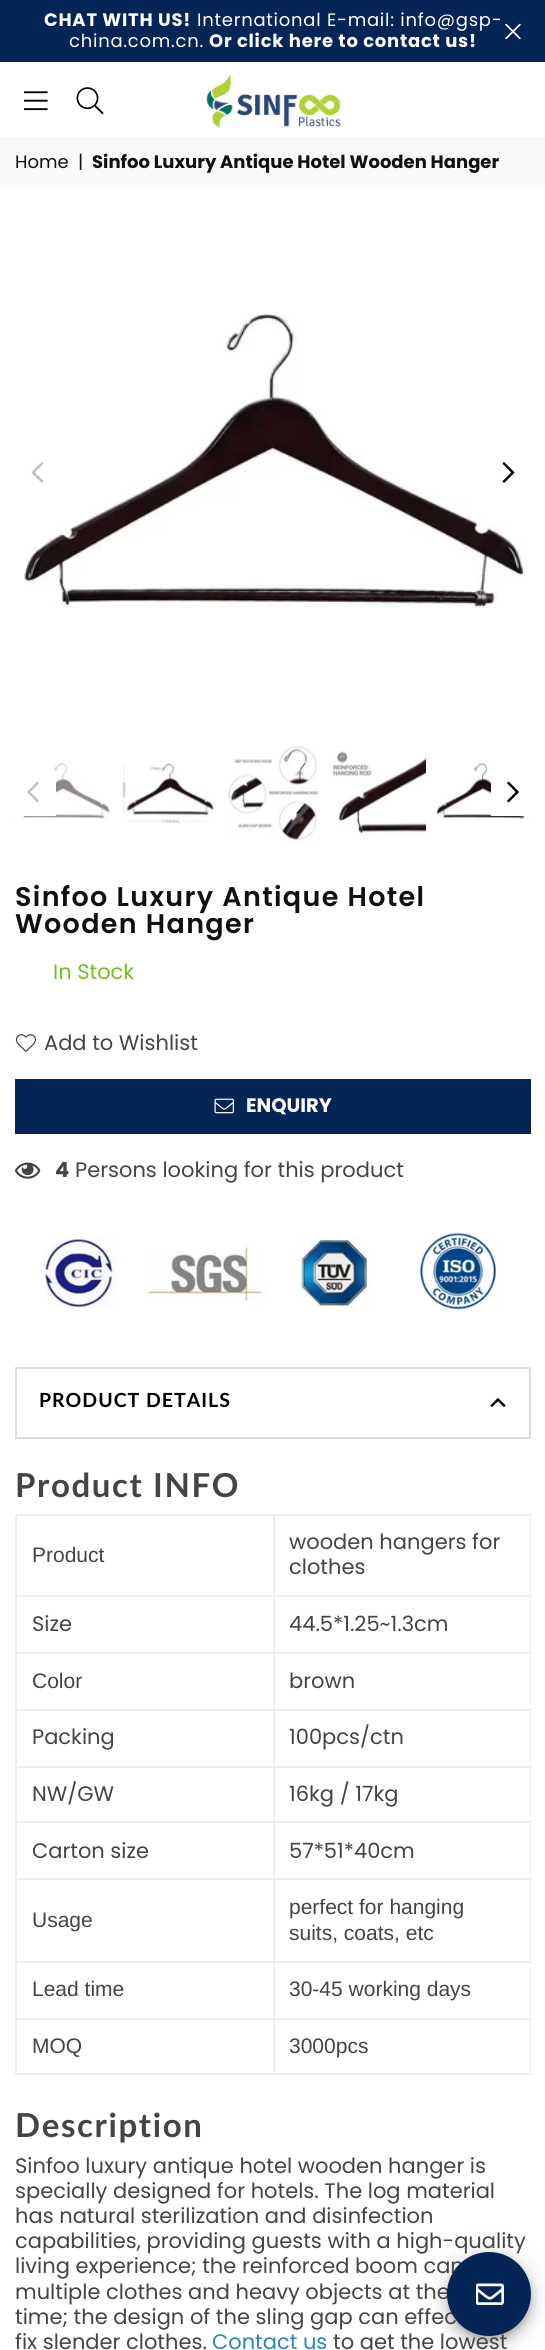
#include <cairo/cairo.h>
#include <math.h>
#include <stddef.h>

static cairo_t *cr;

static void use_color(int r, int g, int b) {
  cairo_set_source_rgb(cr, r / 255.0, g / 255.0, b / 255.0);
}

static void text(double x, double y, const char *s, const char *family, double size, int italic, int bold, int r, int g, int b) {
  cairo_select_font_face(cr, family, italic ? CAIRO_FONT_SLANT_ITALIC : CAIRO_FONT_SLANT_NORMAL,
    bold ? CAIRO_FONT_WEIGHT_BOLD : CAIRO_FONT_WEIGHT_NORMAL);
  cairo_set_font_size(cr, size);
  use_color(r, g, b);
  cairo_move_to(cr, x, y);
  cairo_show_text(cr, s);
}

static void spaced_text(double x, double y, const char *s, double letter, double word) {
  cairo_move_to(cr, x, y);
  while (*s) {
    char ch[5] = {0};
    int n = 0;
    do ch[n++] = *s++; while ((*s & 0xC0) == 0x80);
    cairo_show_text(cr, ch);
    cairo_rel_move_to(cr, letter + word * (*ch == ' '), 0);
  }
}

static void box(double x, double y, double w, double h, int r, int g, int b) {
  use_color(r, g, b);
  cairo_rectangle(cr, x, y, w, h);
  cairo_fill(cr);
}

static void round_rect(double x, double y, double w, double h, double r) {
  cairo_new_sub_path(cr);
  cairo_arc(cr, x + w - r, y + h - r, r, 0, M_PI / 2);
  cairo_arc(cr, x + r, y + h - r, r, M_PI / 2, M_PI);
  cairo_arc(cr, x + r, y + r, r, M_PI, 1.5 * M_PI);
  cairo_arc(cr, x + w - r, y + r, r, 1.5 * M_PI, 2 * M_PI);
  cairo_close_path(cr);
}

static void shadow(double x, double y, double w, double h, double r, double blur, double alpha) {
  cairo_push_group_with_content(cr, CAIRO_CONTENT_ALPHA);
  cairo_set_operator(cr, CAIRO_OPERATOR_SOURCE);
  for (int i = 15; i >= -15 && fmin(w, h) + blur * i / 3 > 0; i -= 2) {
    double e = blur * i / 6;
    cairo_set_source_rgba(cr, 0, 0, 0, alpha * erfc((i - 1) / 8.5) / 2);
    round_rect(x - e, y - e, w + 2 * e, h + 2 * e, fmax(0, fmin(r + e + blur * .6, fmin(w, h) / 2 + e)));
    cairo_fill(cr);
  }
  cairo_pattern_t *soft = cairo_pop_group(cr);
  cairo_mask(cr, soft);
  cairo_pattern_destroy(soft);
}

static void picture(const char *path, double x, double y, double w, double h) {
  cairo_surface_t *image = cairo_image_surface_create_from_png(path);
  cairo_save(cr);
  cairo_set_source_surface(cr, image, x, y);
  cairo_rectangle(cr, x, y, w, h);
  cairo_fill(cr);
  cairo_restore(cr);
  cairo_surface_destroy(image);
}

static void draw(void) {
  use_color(255, 255, 255);
  cairo_paint(cr);
  box(0, 0, 545, 62, 4, 37, 85);
  picture("img_01.png", 505, 23, 16, 17);
  picture("img_02.png", 24, 91, 24, 20);
  picture("img_03.png", 76, 87, 28, 28);
  picture("img_04.png", 206, 74, 135, 54);
  box(0, 137, 545, 49, 249, 249, 249);
  picture("img_05.png", 24, 313, 501, 295);
  picture("img_06.png", 31, 462, 13, 21);
  picture("img_07.png", 502, 462, 13, 21);
  picture("img_08.png", 15, 763, 95, 56);
  picture("img_09.png", 122, 763, 92, 61);
  picture("img_10.png", 228, 746, 91, 96);
  picture("img_11.png", 330, 751, 96, 83);
  picture("img_12.png", 435, 761, 96, 60);
  box(15, 771, 41, 45, 255, 255, 255);
  picture("img_13.png", 27, 781, 12, 22);
  box(491, 779, 40, 37, 255, 255, 255);
  picture("img_14.png", 507, 781, 12, 22);
  picture("img_15.png", 15, 1034, 21, 18);
  box(15, 1079, 516, 55, 4, 37, 85);
  picture("img_16.png", 214, 1098, 20, 16);
  picture("img_17.png", 15, 1162, 26, 17);
  picture("img_18.png", 40, 1232, 457, 79);
  cairo_rectangle(cr, 16, 1368, 514, 70);
  use_color(221, 221, 221);
  cairo_stroke(cr);
  picture("img_19.png", 490, 1398, 16, 9);
  box(273, 1514, 258, 2, 238, 238, 238);
  box(273, 1595, 258, 2, 238, 238, 238);
  box(273, 1652, 258, 2, 238, 238, 238);
  box(273, 1709, 258, 2, 238, 238, 238);
  box(273, 1766, 258, 2, 238, 238, 238);
  box(273, 1821, 258, 2, 238, 238, 238);
  box(273, 1878, 258, 2, 238, 238, 238);
  box(273, 1961, 258, 2, 238, 238, 238);
  box(273, 2018, 258, 2, 238, 238, 238);
  box(530, 2018, 1, 57, 238, 238, 238);
  box(273, 2073, 258, 2, 238, 238, 238);
  box(273, 2018, 2, 57, 238, 238, 238);
  box(15, 2018, 260, 2, 238, 238, 238);
  box(273, 1961, 2, 58, 238, 238, 238);
  box(15, 1961, 260, 2, 238, 238, 238);
  box(273, 1878, 2, 84, 238, 238, 238);
  box(15, 1878, 260, 2, 238, 238, 238);
  box(273, 1821, 2, 59, 238, 238, 238);
  box(15, 1821, 260, 2, 238, 238, 238);
  box(273, 1766, 2, 57, 238, 238, 238);
  box(15, 1766, 260, 2, 238, 238, 238);
  box(273, 1709, 2, 58, 238, 238, 238);
  box(15, 1709, 260, 2, 238, 238, 238);
  box(273, 1652, 2, 58, 238, 238, 238);
  box(15, 1652, 260, 2, 238, 238, 238);
  box(273, 1595, 2, 58, 238, 238, 238);
  box(15, 1595, 260, 2, 238, 238, 238);
  box(273, 1514, 2, 82, 238, 238, 238);
  box(15, 1514, 260, 2, 238, 238, 238);
  box(15, 2073, 260, 2, 238, 238, 238);
  box(15, 2018, 2, 57, 238, 238, 238);
  box(15, 1961, 2, 58, 238, 238, 238);
  box(15, 1878, 2, 84, 238, 238, 238);
  box(15, 1821, 2, 59, 238, 238, 238);
  box(15, 1766, 2, 57, 238, 238, 238);
  box(15, 1709, 2, 58, 238, 238, 238);
  box(15, 1652, 2, 58, 238, 238, 238);
  box(15, 1595, 2, 58, 238, 238, 238);
  box(15, 1514, 2, 82, 238, 238, 238);
  box(530, 1961, 1, 58, 238, 238, 238);
  box(530, 1878, 1, 84, 238, 238, 238);
  box(530, 1821, 1, 59, 238, 238, 238);
  box(530, 1766, 1, 57, 238, 238, 238);
  box(530, 1709, 1, 58, 238, 238, 238);
  box(530, 1652, 1, 58, 238, 238, 238);
  box(530, 1595, 1, 58, 238, 238, 238);
  box(530, 1514, 1, 82, 238, 238, 238);
  use_color(0, 0, 0);
  shadow(447, 2253, 84, 84, 42, 13.5, 0.12);
  shadow(447, 2261, 84, 84, 42, 7.5, 0.14);
  shadow(449, 2258, 81, 81, 40.5, 4, 0.2);
  cairo_select_font_face(cr, "Poppins", CAIRO_FONT_SLANT_NORMAL, CAIRO_FONT_WEIGHT_BOLD);
  cairo_set_font_size(cr, 18);
  use_color(255, 255, 255);
  spaced_text(44, 26, "CHAT WITH US!", 0.75, 0);
  cairo_select_font_face(cr, "Poppins", CAIRO_FONT_SLANT_NORMAL, CAIRO_FONT_WEIGHT_NORMAL);
  spaced_text(197, 26, "International E-mail: info@gsp-", 0.75, 0);
  spaced_text(69, 47, "china.com.cn.", 0.75, 0);
  cairo_select_font_face(cr, "Poppins", CAIRO_FONT_SLANT_NORMAL, CAIRO_FONT_WEIGHT_BOLD);
  spaced_text(209, 47, "Or click here to contact us!", 0.75, 0);
  text(15, 168, "Home", "Poppins", 18, 0, 0, 17, 17, 17);
  text(78, 168, "|", "Poppins", 18, 0, 0, 17, 17, 17);
  text(92, 168, "Sinfoo Luxury Antique Hotel Wooden Hanger", "Poppins", 18, 0, 1, 17, 17, 17);
  cairo_select_font_face(cr, "Poppins SemiBold", CAIRO_FONT_SLANT_NORMAL, CAIRO_FONT_WEIGHT_NORMAL);
  cairo_set_font_size(cr, 27);
  spaced_text(15, 906, "Sinfoo Luxury Antique Hotel", 1.35, 0);
  spaced_text(15, 933, "Wooden Hanger", 1.35, 0);
  text(53, 979, "In Stock", "Poppins", 21, 0, 0, 118, 189, 28);
  text(44, 1050, "Add to Wishlist", "Poppins", 21, 0, 0, 68, 68, 68);
  text(246, 1112, "ENQUIRY", "Poppins", 19.5, 0, 1, 255, 255, 255);
  text(55, 1177, "4", "Poppins", 21, 0, 1, 68, 68, 68);
  text(75, 1177, "Persons looking for this product", "Poppins", 21, 0, 0, 68, 68, 68);
  cairo_select_font_face(cr, "Lato", CAIRO_FONT_SLANT_NORMAL, CAIRO_FONT_WEIGHT_BOLD);
  cairo_set_font_size(cr, 19.5);
  use_color(0, 0, 0);
  spaced_text(39, 1407, "PRODUCT DETAILS", 1, 0);
  cairo_set_font_size(cr, 33);
  use_color(68, 68, 68);
  spaced_text(15, 1497, "Product INFO", 1.6, 0);
  text(32, 1562, "Product", "Liberation Sans", 21, 0, 0, 68, 68, 68);
  text(289, 1549, "wooden hangers for", "Poppins", 21, 0, 0, 68, 68, 68);
  text(289, 1574, "clothes", "Poppins", 21, 0, 0, 68, 68, 68);
  text(32, 1631, "Size", "Poppins", 21, 0, 0, 68, 68, 68);
  text(289, 1631, "44.5*1.25~1.3cm", "Poppins", 21, 0, 0, 68, 68, 68);
  text(32, 1688, "Color", "Liberation Sans", 21, 0, 0, 68, 68, 68);
  text(289, 1688, "brown", "Poppins", 21, 0, 0, 68, 68, 68);
  text(32, 1744, "Packing", "Poppins", 21, 0, 0, 68, 68, 68);
  text(289, 1744, "100pcs/ctn", "Poppins", 21, 0, 0, 68, 68, 68);
  text(32, 1801, "NW/GW", "Poppins", 21, 0, 0, 68, 68, 68);
  text(289, 1801, "16kg / 17kg", "Poppins", 21, 0, 0, 68, 68, 68);
  text(32, 1858, "Carton size", "Poppins", 21, 0, 0, 68, 68, 68);
  text(289, 1858, "57*51*40cm", "Poppins", 21, 0, 0, 68, 68, 68);
  text(32, 1927, "Usage", "Liberation Sans", 21, 0, 0, 68, 68, 68);
  text(289, 1914, "perfect for hanging", "Liberation Sans", 21, 0, 0, 68, 68, 68);
  text(289, 1940, "suits, coats, etc", "Liberation Sans", 21, 0, 0, 68, 68, 68);
  text(32, 1996, "Lead time", "Liberation Sans", 21, 0, 0, 68, 68, 68);
  text(289, 1996, "30-45 working days", "Liberation Sans", 21, 0, 0, 68, 68, 68);
  text(32, 2053, "MOQ", "Liberation Sans", 21, 0, 0, 68, 68, 68);
  text(289, 2053, "3000pcs", "Liberation Sans", 21, 0, 0, 68, 68, 68);
  cairo_select_font_face(cr, "Lato", CAIRO_FONT_SLANT_NORMAL, CAIRO_FONT_WEIGHT_BOLD);
  cairo_set_font_size(cr, 33);
  spaced_text(15, 2137, "Description", 1.6, 0);
  text(15, 2173, "Sinfoo luxury antique hotel wooden hanger is", "Poppins", 21, 0, 0, 68, 68, 68);
  text(15, 2198, "specially designed for hotels. The log material", "Poppins", 21, 0, 0, 68, 68, 68);
  text(15, 2223, "has natural sterilization and disinfection", "Poppins", 21, 0, 0, 68, 68, 68);
  text(15, 2248, "capabilities, providing guests with a high-quality", "Poppins", 21, 0, 0, 68, 68, 68);
  text(15, 2273, "living experience; the reinforced boom can", "Poppins", 21, 0, 0, 68, 68, 68);
  text(15, 2299, "multiple clothes and heavy objects at the", "Poppins", 21, 0, 0, 68, 68, 68);
  text(15, 2324, "time; the design of the sling gap can effec", "Poppins", 21, 0, 0, 68, 68, 68);
  text(15, 2349, "fix slender clothes.", "Poppins", 21, 0, 0, 68, 68, 68);
  text(212, 2349, "Contact us", "Poppins", 21, 0, 0, 44, 133, 183);
  text(333, 2349, "to get the lowest", "Poppins", 21, 0, 0, 68, 68, 68);
  use_color(4, 37, 85);
  cairo_new_path(cr);
  cairo_arc(cr, 489, 2294, 42, 0, 2 * M_PI);
  cairo_fill(cr);
  picture("img_20.png", 476, 2283, 28, 22);
}

int main(void) {
  cairo_surface_t *surface = cairo_image_surface_create(CAIRO_FORMAT_RGB24, 545, 2350);
  cr = cairo_create(surface);
  cairo_font_options_t *options = cairo_font_options_create();
  cairo_font_options_set_hint_metrics(options, CAIRO_HINT_METRICS_OFF);
  cairo_font_options_set_hint_style(options, CAIRO_HINT_STYLE_NONE);
  cairo_set_font_options(cr, options);
  cairo_set_miter_limit(cr, 4);
  draw();
  cairo_surface_write_to_png(surface, "out.png");
  cairo_font_options_destroy(options);
  cairo_destroy(cr);
  cairo_surface_destroy(surface);
  return 0;
}
